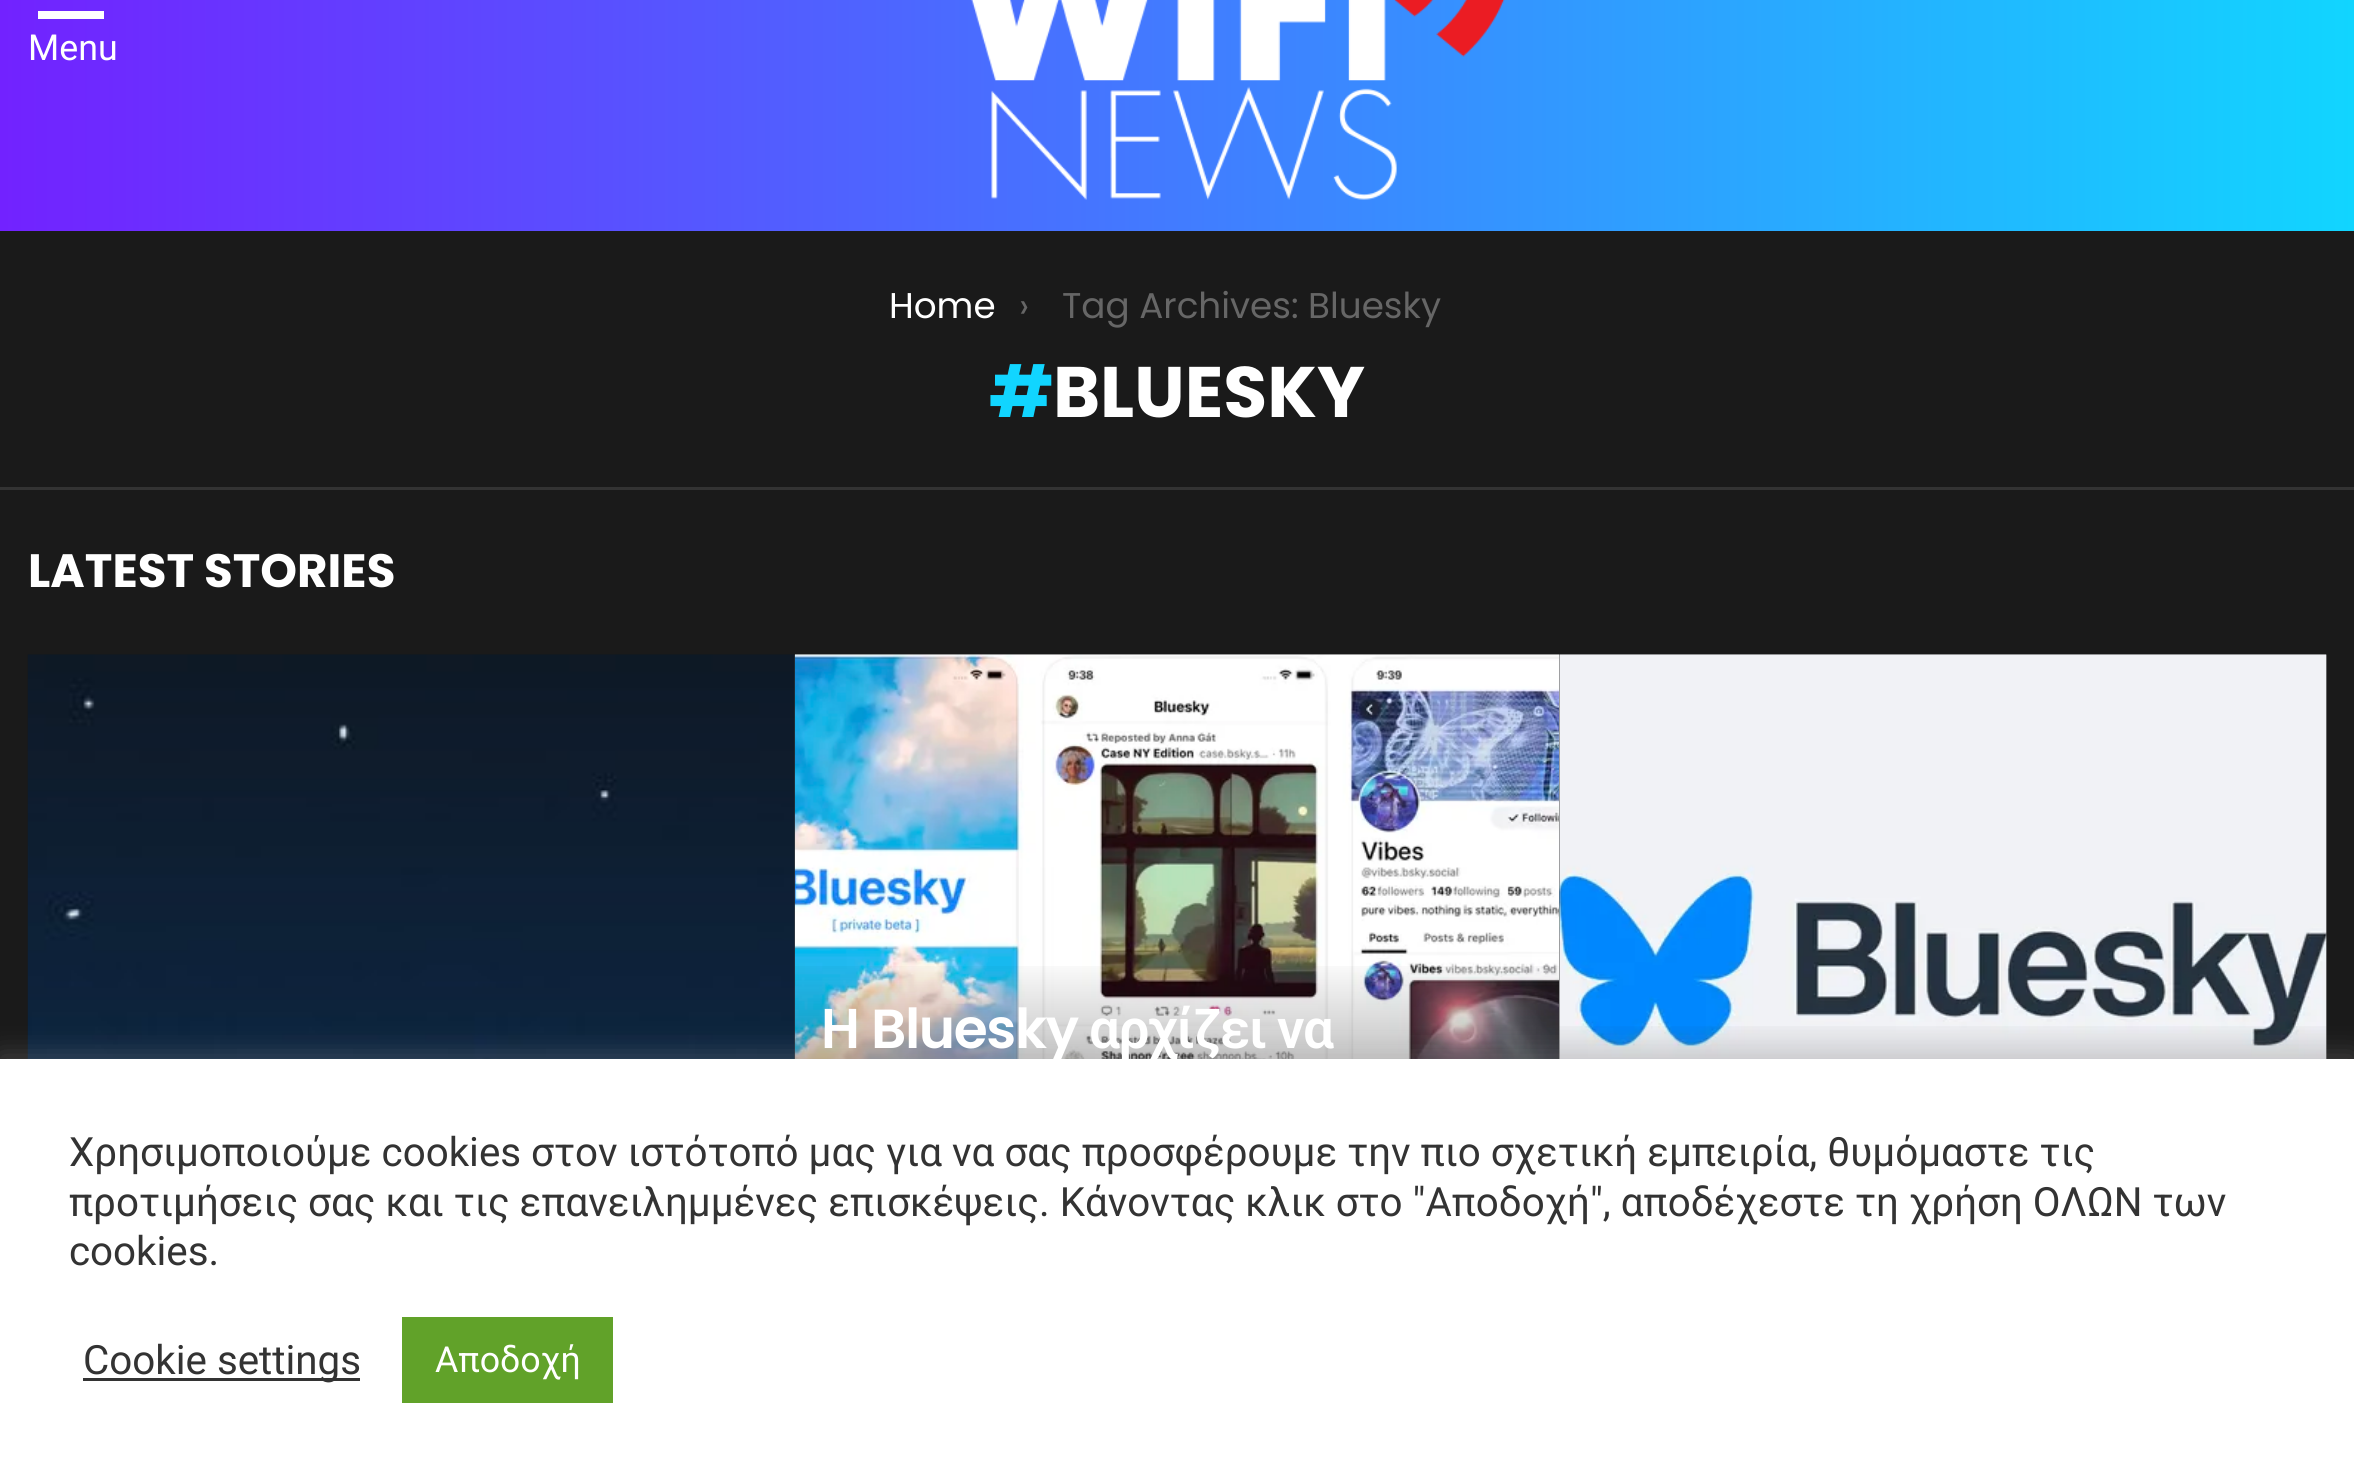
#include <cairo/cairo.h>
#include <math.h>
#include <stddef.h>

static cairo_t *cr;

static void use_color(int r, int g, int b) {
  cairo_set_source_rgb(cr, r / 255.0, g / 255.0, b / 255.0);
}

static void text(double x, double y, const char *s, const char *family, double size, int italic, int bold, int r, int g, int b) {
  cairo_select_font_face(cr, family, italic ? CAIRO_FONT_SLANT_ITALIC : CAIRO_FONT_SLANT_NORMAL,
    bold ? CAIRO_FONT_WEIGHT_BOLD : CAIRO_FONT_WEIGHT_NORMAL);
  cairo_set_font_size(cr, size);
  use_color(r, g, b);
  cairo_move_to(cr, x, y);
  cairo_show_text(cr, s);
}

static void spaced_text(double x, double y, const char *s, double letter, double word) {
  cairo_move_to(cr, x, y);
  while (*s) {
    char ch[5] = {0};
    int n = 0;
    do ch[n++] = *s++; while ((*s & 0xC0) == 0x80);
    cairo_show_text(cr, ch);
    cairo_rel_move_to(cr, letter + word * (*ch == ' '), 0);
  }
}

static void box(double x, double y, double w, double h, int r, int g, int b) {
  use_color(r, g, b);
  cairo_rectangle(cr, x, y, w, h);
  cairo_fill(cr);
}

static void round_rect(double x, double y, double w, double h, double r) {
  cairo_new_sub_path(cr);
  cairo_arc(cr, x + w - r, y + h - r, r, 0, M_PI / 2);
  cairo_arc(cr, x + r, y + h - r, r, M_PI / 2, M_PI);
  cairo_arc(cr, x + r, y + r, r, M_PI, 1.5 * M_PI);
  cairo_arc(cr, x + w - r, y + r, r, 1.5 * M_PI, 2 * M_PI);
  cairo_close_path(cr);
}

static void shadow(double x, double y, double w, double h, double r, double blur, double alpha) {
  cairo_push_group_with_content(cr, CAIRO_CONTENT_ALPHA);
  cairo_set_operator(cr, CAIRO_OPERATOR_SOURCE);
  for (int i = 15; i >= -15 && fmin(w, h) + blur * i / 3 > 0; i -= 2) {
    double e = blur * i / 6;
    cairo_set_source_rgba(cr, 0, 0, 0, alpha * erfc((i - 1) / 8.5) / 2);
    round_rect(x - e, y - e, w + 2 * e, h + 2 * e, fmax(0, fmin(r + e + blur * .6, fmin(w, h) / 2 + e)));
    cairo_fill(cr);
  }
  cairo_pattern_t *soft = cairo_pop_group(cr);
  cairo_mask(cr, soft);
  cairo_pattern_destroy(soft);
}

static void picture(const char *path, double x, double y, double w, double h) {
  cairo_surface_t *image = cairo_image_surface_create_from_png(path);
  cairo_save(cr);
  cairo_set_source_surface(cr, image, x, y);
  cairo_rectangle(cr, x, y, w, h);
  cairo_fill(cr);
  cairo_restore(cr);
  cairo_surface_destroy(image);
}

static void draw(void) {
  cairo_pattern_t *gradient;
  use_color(26, 26, 26);
  cairo_paint(cr);
  gradient = cairo_pattern_create_linear(0, 15, 2354, 15);
  cairo_pattern_add_color_stop_rgba(gradient, 0, 0.447, 0.133, 1, 1);
  cairo_pattern_add_color_stop_rgba(gradient, 1, 0.067, 0.835, 1, 1);
  cairo_set_source(cr, gradient);
  cairo_pattern_destroy(gradient);
  cairo_rectangle(cr, 0, 0, 2354, 231);
  cairo_fill(cr);
  use_color(255, 255, 255);
  cairo_new_path(cr);
  cairo_move_to(cr, 38, -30);
  cairo_line_to(cr, 104, -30);
  cairo_line_to(cr, 104, -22);
  cairo_line_to(cr, 38, -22);
  cairo_close_path(cr);
  cairo_move_to(cr, 38, -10);
  cairo_line_to(cr, 104, -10);
  cairo_line_to(cr, 104, -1);
  cairo_line_to(cr, 38, -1);
  cairo_close_path(cr);
  cairo_move_to(cr, 38, 11);
  cairo_line_to(cr, 104, 11);
  cairo_line_to(cr, 104, 19);
  cairo_line_to(cr, 38, 19);
  cairo_close_path(cr);
  cairo_fill(cr);
  picture("img_01.png", 971, 0, 534, 200);
  box(0, 487, 2354, 3, 51, 51, 51);
  box(794, 655, 1, 404, 51, 51, 51);
  picture("img_02.png", 27, 654, 768, 405);
  picture("img_03.png", 794, 654, 766, 405);
  gradient = cairo_pattern_create_linear(1177, 957, 1177, 1287);
  cairo_pattern_add_color_stop_rgba(gradient, 0, 0, 0, 0, 0);
  cairo_pattern_add_color_stop_rgba(gradient, 1, 0, 0, 0, 0.75);
  cairo_set_source(cr, gradient);
  cairo_pattern_destroy(gradient);
  cairo_rectangle(cr, 795, 966, 764, 93);
  cairo_fill(cr);
  box(1559, 655, 768, 404, 51, 51, 51);
  picture("img_04.png", 1559, 654, 768, 405);
  gradient = cairo_pattern_create_linear(1943, 1018, 1943, 1287);
  cairo_pattern_add_color_stop_rgba(gradient, 0, 0, 0, 0, 0);
  cairo_pattern_add_color_stop_rgba(gradient, 1, 0, 0, 0, 0.75);
  cairo_set_source(cr, gradient);
  cairo_pattern_destroy(gradient);
  cairo_rectangle(cr, 1559, 1026, 768, 33);
  cairo_fill(cr);
  use_color(172, 171, 171);
  shadow(0, 1056, 2354, 426, 0, 14, 0.3);
  box(0, 1059, 2354, 424, 255, 255, 255);
  box(83, 1378, 277, 3, 51, 51, 51);
  box(402, 1317, 211, 86, 97, 162, 41);
  text(28, 60, "Menu", "Roboto", 35.75, 0, 0, 255, 255, 255);
  text(889, 318, "Home", "Poppins", 35.75, 0, 0, 255, 255, 255);
  text(1019, 318, "›", "Poppins", 35.75, 0, 0, 102, 102, 102);
  text(1062, 318, "Tag Archives: Bluesky", "Poppins", 35.75, 0, 0, 102, 102, 102);
  text(989, 417, "#", "Poppins", 71.5, 0, 1, 17, 213, 255);
  text(1053, 417, "BLUESKY", "Poppins", 71.5, 0, 1, 255, 255, 255);
  text(28, 587, "LATEST STORIES", "Poppins", 46.75, 0, 1, 255, 255, 255);
  cairo_select_font_face(cr, "Roboto SemiBold", CAIRO_FONT_SLANT_NORMAL, CAIRO_FONT_WEIGHT_NORMAL);
  cairo_set_font_size(cr, 55);
  spaced_text(821, 1048, "Η", -1.4, 0);
  cairo_select_font_face(cr, "Poppins SemiBold", CAIRO_FONT_SLANT_NORMAL, CAIRO_FONT_WEIGHT_NORMAL);
  spaced_text(871, 1048, "Bluesky", -1.4, 0);
  cairo_select_font_face(cr, "Roboto SemiBold", CAIRO_FONT_SLANT_NORMAL, CAIRO_FONT_WEIGHT_NORMAL);
  spaced_text(1089, 1048, "αρχίζει να", -1.4, -1);
  text(69, 1166, "Χρησιμοποιούμε cookies στον ιστότοπό μας για να σας προσφέρουμε την πιο σχετική εμπειρία, θυμόμαστε τις", "Roboto", 40.33, 0, 0, 51, 51, 51);
  text(69, 1216, "προτιμήσεις σας και τις επανειλημμένες επισκέψεις. Κάνοντας κλικ στο \"Αποδοχή\", αποδέχεστε τη χρήση ΟΛΩΝ των", "Roboto", 40.33, 0, 0, 51, 51, 51);
  text(69, 1265, "cookies.", "Roboto", 40.33, 0, 0, 51, 51, 51);
  text(83, 1374, "Cookie settings", "Roboto", 40.33, 0, 0, 51, 51, 51);
  text(435, 1372, "Αποδοχή", "Roboto", 35.75, 0, 0, 255, 255, 255);
}

int main(void) {
  cairo_surface_t *surface = cairo_image_surface_create(CAIRO_FORMAT_RGB24, 2354, 1483);
  cr = cairo_create(surface);
  cairo_font_options_t *options = cairo_font_options_create();
  cairo_font_options_set_hint_metrics(options, CAIRO_HINT_METRICS_OFF);
  cairo_font_options_set_hint_style(options, CAIRO_HINT_STYLE_NONE);
  cairo_set_font_options(cr, options);
  cairo_set_miter_limit(cr, 4);
  draw();
  cairo_surface_write_to_png(surface, "out.png");
  cairo_font_options_destroy(options);
  cairo_destroy(cr);
  cairo_surface_destroy(surface);
  return 0;
}
